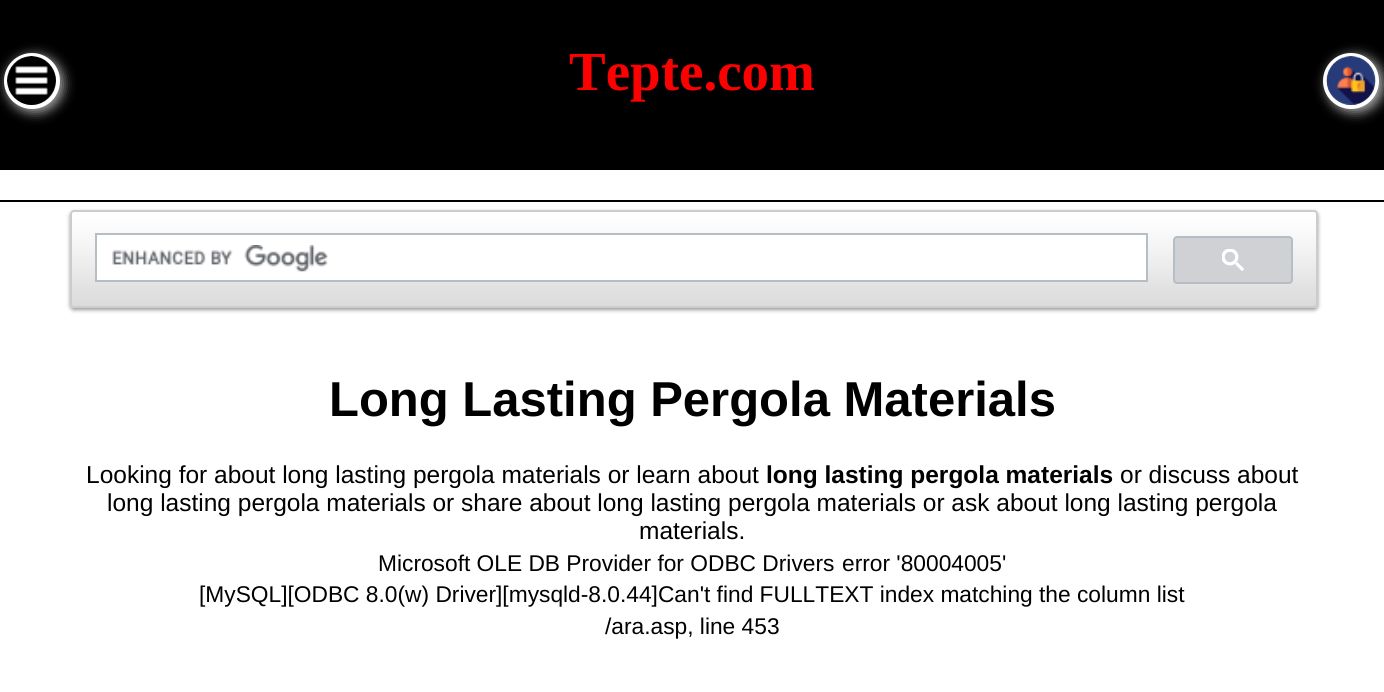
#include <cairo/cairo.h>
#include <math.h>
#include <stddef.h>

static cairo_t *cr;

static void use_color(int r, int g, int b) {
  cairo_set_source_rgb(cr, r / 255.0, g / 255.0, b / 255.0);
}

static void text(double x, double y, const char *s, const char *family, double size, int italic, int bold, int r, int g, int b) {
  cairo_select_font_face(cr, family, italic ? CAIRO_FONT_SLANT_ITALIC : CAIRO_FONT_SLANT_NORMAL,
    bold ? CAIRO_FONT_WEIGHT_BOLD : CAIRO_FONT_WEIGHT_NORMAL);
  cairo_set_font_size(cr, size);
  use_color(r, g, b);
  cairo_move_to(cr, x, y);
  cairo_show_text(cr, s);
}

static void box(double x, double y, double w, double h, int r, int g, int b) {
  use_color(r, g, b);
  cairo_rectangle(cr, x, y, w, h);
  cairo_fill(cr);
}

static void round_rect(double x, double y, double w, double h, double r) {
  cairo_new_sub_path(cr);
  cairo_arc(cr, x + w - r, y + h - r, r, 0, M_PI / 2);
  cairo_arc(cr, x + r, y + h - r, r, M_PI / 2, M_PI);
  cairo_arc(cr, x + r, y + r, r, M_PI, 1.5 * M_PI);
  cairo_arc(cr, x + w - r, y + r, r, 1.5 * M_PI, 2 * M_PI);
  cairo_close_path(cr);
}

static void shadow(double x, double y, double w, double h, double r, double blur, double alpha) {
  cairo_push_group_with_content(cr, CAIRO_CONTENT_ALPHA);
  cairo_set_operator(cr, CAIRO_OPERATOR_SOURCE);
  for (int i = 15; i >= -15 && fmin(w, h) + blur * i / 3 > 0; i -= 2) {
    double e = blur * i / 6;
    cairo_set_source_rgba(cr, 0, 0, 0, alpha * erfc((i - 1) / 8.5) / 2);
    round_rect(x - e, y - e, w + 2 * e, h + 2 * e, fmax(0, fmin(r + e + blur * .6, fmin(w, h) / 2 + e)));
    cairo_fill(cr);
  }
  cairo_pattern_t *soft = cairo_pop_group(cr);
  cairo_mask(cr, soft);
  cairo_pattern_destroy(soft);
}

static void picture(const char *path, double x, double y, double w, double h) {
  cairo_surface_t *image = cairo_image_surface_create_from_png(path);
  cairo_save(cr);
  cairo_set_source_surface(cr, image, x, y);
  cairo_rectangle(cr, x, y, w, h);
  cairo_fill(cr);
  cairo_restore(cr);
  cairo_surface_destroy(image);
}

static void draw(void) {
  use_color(255, 255, 255);
  cairo_paint(cr);
  box(0, 0, 1384, 170, 0, 0, 0);
  use_color(255, 255, 255);
  shadow(7, 56, 56, 56, 28, 6, 0.7);
  cairo_arc(cr, 32, 81, 26, 0, 2 * M_PI);
  use_color(255, 255, 255);
  cairo_set_line_width(cr, 4);
  cairo_stroke(cr);
  picture("img_01.png", 7, 56, 49, 49);
  use_color(255, 255, 255);
  shadow(1327, 56, 56, 56, 28, 6, 0.7);
  cairo_arc(cr, 1351, 81, 26, 0, 2 * M_PI);
  use_color(255, 255, 255);
  cairo_stroke(cr);
  picture("img_02.png", 1326, 56, 50, 49);
  box(0, 200, 1384, 2, 0, 0, 0);
  use_color(153, 153, 153);
  shadow(70, 212, 1248, 98, 4, 2, 1);
  picture("img_03.png", 70, 211, 1248, 97);
  round_rect(71, 211, 1246, 96, 3);
  use_color(204, 204, 204);
  cairo_set_line_width(cr, 2);
  cairo_stroke(cr);
  use_color(255, 255, 255);
  cairo_rectangle(cr, 96, 234, 1051, 47);
  cairo_fill_preserve(cr);
  use_color(182, 190, 197);
  cairo_stroke(cr);
  picture("img_04.png", 112, 245, 216, 27);
  use_color(208, 209, 212);
  round_rect(1174, 237, 118, 46, 3);
  cairo_fill_preserve(cr);
  use_color(182, 190, 197);
  cairo_stroke(cr);
  picture("img_05.png", 1222, 249, 22, 22);
  text(569, 90, "Tepte.com", "Liberation Serif", 55, 0, 1, 255, 0, 0);
  text(329, 416, "Long Lasting Pergola Materials", "Liberation Sans", 49, 0, 1, 0, 0, 0);
  text(86, 483, "Looking for about long lasting pergola materials or learn about", "Liberation Sans", 24.5, 0, 0, 0, 0, 0);
  text(766, 483, "long lasting pergola materials", "Liberation Sans", 24.5, 0, 1, 0, 0, 0);
  text(1120, 483, "or discuss about", "Liberation Sans", 24.5, 0, 0, 0, 0, 0);
  text(107, 511, "long lasting pergola materials or share about long lasting pergola materials or ask about long lasting pergola", "Liberation Sans", 24.5, 0, 0, 0, 0, 0);
  text(639, 539, "materials.", "Liberation Sans", 24.5, 0, 0, 0, 0, 0);
  text(378, 571, "Microsoft OLE DB Provider for ODBC Drivers", "Liberation Sans", 22.75, 0, 0, 0, 0, 0);
  text(842, 571, "error '80004005'", "Liberation Sans", 22.75, 0, 0, 0, 0, 0);
  text(199, 602, "[MySQL][ODBC 8.0(w) Driver][mysqld-8.0.44]Can't find FULLTEXT index matching the column list", "Liberation Sans", 22.75, 0, 0, 0, 0, 0);
  text(605, 634, "/ara.asp, line 453", "Liberation Sans", 22.75, 0, 0, 0, 0, 0);
}

int main(void) {
  cairo_surface_t *surface = cairo_image_surface_create(CAIRO_FORMAT_RGB24, 1384, 692);
  cr = cairo_create(surface);
  cairo_font_options_t *options = cairo_font_options_create();
  cairo_font_options_set_hint_metrics(options, CAIRO_HINT_METRICS_OFF);
  cairo_font_options_set_hint_style(options, CAIRO_HINT_STYLE_NONE);
  cairo_set_font_options(cr, options);
  cairo_set_miter_limit(cr, 4);
  draw();
  cairo_surface_write_to_png(surface, "out.png");
  cairo_font_options_destroy(options);
  cairo_destroy(cr);
  cairo_surface_destroy(surface);
  return 0;
}
